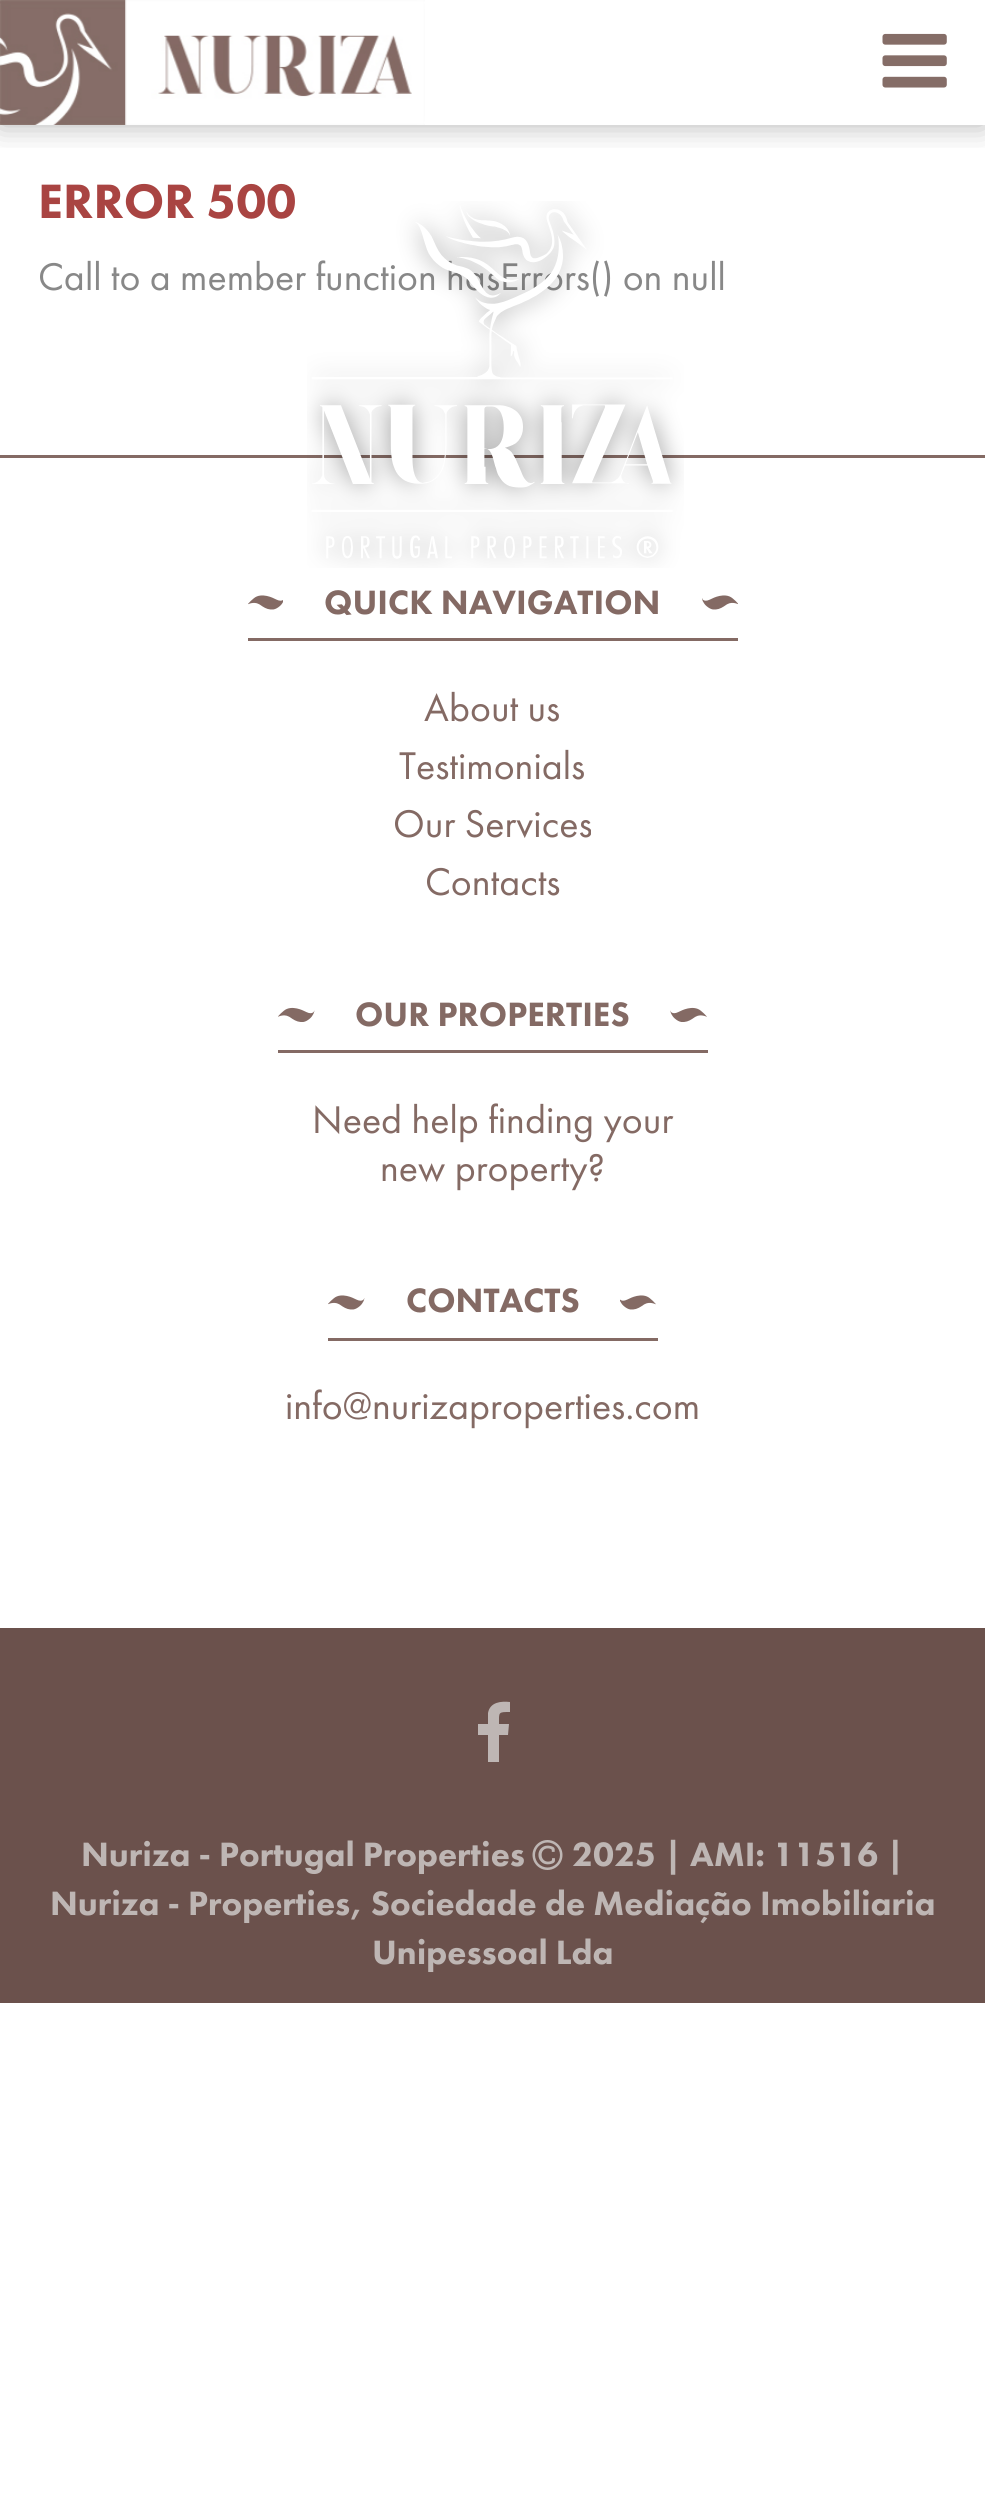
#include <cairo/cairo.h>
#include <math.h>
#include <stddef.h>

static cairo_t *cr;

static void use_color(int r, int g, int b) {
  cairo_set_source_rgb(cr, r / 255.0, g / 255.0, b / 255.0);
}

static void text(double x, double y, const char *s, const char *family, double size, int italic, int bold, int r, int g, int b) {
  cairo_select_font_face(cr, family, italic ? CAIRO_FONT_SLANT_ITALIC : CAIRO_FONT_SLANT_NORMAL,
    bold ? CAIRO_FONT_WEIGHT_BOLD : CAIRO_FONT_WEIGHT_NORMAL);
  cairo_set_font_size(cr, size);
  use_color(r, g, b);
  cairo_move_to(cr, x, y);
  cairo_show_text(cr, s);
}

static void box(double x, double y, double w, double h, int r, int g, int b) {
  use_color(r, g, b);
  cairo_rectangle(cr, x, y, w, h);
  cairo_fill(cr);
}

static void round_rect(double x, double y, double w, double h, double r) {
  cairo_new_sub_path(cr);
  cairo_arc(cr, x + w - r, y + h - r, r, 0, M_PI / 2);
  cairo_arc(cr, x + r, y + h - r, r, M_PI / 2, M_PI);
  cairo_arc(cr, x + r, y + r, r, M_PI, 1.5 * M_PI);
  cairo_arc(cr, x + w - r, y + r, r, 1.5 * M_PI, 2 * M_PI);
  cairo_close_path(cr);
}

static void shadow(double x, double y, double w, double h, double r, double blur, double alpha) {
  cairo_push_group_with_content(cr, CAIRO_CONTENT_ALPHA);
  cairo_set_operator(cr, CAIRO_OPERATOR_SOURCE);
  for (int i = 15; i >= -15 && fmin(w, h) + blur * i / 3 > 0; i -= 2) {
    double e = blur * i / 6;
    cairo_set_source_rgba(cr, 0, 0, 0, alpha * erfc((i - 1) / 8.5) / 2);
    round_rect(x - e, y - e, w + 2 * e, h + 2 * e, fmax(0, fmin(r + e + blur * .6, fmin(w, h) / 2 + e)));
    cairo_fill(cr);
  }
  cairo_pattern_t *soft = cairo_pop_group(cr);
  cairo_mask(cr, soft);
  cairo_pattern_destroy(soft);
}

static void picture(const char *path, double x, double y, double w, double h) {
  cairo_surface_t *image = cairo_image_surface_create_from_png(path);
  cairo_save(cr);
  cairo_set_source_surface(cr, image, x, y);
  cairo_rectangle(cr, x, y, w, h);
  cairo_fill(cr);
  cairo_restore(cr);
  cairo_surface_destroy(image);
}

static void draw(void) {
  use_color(255, 255, 255);
  cairo_paint(cr);
  cairo_save(cr);
  cairo_rectangle(cr, 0, 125, 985, 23);
  cairo_clip(cr);
  use_color(0, 0, 0);
  shadow(0, 0, 985, 125, 0, 15, 0.3);
  cairo_restore(cr);
  picture("img_01.png", 0, 0, 425, 125);
  picture("img_02.png", 882, 33, 65, 55);
  box(0, 455, 985, 3, 132, 106, 100);
  box(248, 638, 490, 3, 132, 106, 100);
  picture("img_04.png", 248, 595, 35, 15);
  picture("img_05.png", 702, 595, 36, 15);
  box(278, 1050, 430, 3, 132, 106, 100);
  picture("img_06.png", 278, 1007, 37, 15);
  picture("img_07.png", 670, 1007, 37, 15);
  box(328, 1338, 330, 3, 132, 106, 100);
  picture("img_08.png", 328, 1295, 37, 15);
  picture("img_09.png", 620, 1295, 36, 15);
  box(0, 1628, 985, 375, 107, 81, 76);
  use_color(190, 182, 180);
  cairo_new_path(cr);
  cairo_move_to(cr, 510, 1702);
  cairo_line_to(cr, 510, 1712);
  cairo_curve_to(cr, 498, 1712, 499, 1712, 499, 1724);
  cairo_line_to(cr, 509, 1724);
  cairo_line_to(cr, 508, 1735);
  cairo_line_to(cr, 499, 1735);
  cairo_line_to(cr, 499, 1762);
  cairo_line_to(cr, 488, 1762);
  cairo_line_to(cr, 488, 1735);
  cairo_line_to(cr, 478, 1735);
  cairo_line_to(cr, 478, 1724);
  cairo_line_to(cr, 488, 1724);
  cairo_line_to(cr, 488, 1713);
  cairo_curve_to(cr, 490, 1702, 501, 1701, 510, 1702);
  cairo_close_path(cr);
  cairo_fill(cr);
  picture("img_10.png", 532, 1840, 31, 30);
  text(38, 218, "ERROR 500", "Futura PT Black", 50, 0, 0, 169, 68, 66);
  text(38, 290, "Call to a member function hasErrors() on null", "Futura PT", 40, 0, 0, 136, 136, 136);
  picture("img_03.png", 307, 201, 377, 367);
  text(324, 614, "QUICK NAVIGATION", "Futura PT Black", 35, 0, 0, 132, 106, 100);
  text(424, 721, "About us", "Futura PT", 40, 0, 0, 132, 106, 100);
  text(399, 779, "Testimonials", "Futura PT", 40, 0, 0, 132, 106, 100);
  text(393, 837, "Our Services", "Futura PT", 40, 0, 0, 132, 106, 100);
  text(425, 895, "Contacts", "Futura PT", 40, 0, 0, 132, 106, 100);
  text(355, 1026, "OUR PROPERTIES", "Futura PT Black", 35, 0, 0, 132, 106, 100);
  text(312, 1133, "Need help finding your", "Futura PT", 40, 0, 0, 132, 106, 100);
  text(380, 1181, "new property?", "Futura PT", 40, 0, 0, 132, 106, 100);
  text(406, 1312, "CONTACTS", "Futura PT Black", 35, 0, 0, 132, 106, 100);
  text(285, 1419, "info@nurizaproperties.com", "Futura PT", 40, 0, 0, 132, 106, 100);
  text(81, 1866, "Nuriza - Portugal Properties", "Futura PT Black", 35, 0, 0, 190, 182, 180);
  text(572, 1866, "2025 | AMI: 11516 |", "Futura PT Black", 35, 0, 0, 190, 182, 180);
  text(50, 1915, "Nuriza - Properties, Sociedade de Mediação Imobiliaria", "Futura PT Black", 35, 0, 0, 190, 182, 180);
  text(372, 1964, "Unipessoal Lda", "Futura PT Black", 35, 0, 0, 190, 182, 180);
}

int main(void) {
  cairo_surface_t *surface = cairo_image_surface_create(CAIRO_FORMAT_RGB24, 985, 2501);
  cr = cairo_create(surface);
  cairo_font_options_t *options = cairo_font_options_create();
  cairo_font_options_set_hint_metrics(options, CAIRO_HINT_METRICS_OFF);
  cairo_font_options_set_hint_style(options, CAIRO_HINT_STYLE_NONE);
  cairo_set_font_options(cr, options);
  cairo_set_miter_limit(cr, 4);
  draw();
  cairo_surface_write_to_png(surface, "out.png");
  cairo_font_options_destroy(options);
  cairo_destroy(cr);
  cairo_surface_destroy(surface);
  return 0;
}
